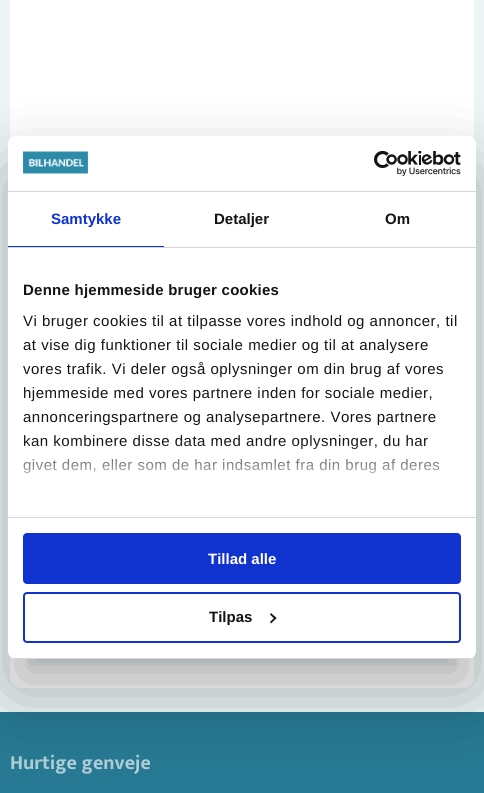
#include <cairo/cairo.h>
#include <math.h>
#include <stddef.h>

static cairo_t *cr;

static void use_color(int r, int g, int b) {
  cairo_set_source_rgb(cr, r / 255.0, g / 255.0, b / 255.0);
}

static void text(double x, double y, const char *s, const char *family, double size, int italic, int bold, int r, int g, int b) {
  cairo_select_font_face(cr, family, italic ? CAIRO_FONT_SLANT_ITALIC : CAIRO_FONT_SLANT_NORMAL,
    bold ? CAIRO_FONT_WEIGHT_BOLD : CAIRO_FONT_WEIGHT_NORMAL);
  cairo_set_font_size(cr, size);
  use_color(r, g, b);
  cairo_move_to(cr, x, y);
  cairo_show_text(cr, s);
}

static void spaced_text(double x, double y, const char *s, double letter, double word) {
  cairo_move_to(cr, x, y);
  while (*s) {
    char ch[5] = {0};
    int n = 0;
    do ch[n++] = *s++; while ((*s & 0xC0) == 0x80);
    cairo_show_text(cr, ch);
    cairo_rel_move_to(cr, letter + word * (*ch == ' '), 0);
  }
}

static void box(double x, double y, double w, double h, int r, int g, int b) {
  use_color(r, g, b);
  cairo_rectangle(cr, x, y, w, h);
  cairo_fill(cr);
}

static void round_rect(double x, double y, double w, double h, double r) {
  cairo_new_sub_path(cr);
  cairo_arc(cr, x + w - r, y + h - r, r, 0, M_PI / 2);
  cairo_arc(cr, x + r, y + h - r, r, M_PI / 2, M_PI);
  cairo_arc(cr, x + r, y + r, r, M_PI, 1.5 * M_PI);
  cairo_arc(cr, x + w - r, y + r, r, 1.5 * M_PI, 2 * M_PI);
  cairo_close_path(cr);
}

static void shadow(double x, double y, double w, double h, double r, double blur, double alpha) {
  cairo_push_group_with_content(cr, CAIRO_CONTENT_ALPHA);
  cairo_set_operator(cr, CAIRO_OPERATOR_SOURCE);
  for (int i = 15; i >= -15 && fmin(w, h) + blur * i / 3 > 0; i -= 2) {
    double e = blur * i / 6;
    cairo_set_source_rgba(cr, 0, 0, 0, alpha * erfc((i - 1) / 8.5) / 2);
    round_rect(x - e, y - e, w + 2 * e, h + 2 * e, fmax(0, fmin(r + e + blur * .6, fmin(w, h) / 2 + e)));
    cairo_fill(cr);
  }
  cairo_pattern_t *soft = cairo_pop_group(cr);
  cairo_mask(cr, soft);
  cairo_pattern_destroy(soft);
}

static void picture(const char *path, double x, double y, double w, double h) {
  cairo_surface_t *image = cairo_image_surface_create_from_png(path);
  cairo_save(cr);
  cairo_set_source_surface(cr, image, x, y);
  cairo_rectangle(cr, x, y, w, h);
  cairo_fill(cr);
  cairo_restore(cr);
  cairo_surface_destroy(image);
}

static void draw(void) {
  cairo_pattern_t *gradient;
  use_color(236, 244, 246);
  cairo_paint(cr);
  box(10, 0, 464, 139, 255, 255, 255);
  cairo_new_path(cr);
  cairo_move_to(cr, 10, 215);
  cairo_line_to(cr, 474, 215);
  cairo_line_to(cr, 474, 678);
  cairo_curve_to(cr, 474, 683.5, 469.5, 688, 464, 688);
  cairo_line_to(cr, 20, 688);
  cairo_curve_to(cr, 14.5, 688, 10, 683.5, 10, 678);
  cairo_close_path(cr);
  cairo_fill(cr);
  use_color(236, 244, 247);
  round_rect(28, 324, 428, 342, 3);
  cairo_fill(cr);
  box(0, 712, 484, 81, 39, 120, 146);
  use_color(0, 0, 0);
  shadow(8, 168, 468, 523, 8, 34, 0.3);
  use_color(255, 255, 255);
  round_rect(8, 136, 468, 523, 8);
  cairo_fill(cr);
  box(8, 191, 468, 1, 214, 214, 214);
  picture("img_01.png", 23, 151, 65, 23);
  picture("img_02.png", 374, 151, 87, 25);
  box(8, 247, 468, 1, 214, 214, 214);
  box(8, 246, 156, 1, 16, 50, 207);
  box(8, 517, 468, 1, 214, 214, 214);
  cairo_save(cr);
  round_rect(8, 136, 468, 523, 8);
  cairo_clip(cr);
  box(8, 658, 468, 1, 214, 214, 214);
  cairo_restore(cr);
  use_color(16, 50, 207);
  round_rect(24, 534, 436, 49, 3);
  cairo_fill_preserve(cr);
  cairo_stroke(cr);
  round_rect(24, 593, 436, 49, 3);
  cairo_stroke(cr);
  use_color(20, 20, 20);
  cairo_new_path(cr);
  cairo_move_to(cr, 271, 613);
  cairo_line_to(cr, 276.5, 618);
  cairo_line_to(cr, 275, 619.5);
  cairo_line_to(cr, 270, 614.5);
  cairo_close_path(cr);
  cairo_fill(cr);
  cairo_new_path(cr);
  cairo_move_to(cr, 275, 617);
  cairo_line_to(cr, 276.5, 618);
  cairo_line_to(cr, 271, 623.5);
  cairo_line_to(cr, 270, 622);
  cairo_close_path(cr);
  cairo_fill(cr);
  text(51, 224, "Samtykke", "Liberation Sans", 15, 0, 1, 16, 50, 207);
  text(214, 224, "Detaljer", "Liberation Sans", 15, 0, 1, 20, 20, 20);
  text(385, 224, "Om", "Liberation Sans", 15, 0, 1, 20, 20, 20);
  spaced_text(23, 295, "Denne hjemmeside bruger cookies", 0.25, 0);
  cairo_select_font_face(cr, "Liberation Sans", CAIRO_FONT_SLANT_NORMAL, CAIRO_FONT_WEIGHT_NORMAL);
  spaced_text(23, 326, "Vi bruger cookies til at tilpasse vores indhold og annoncer, til", 0.5, 0);
  spaced_text(23, 350, "at vise dig funktioner til sociale medier og til at analysere", 0.5, 0);
  spaced_text(23, 374, "vores trafik. Vi deler også oplysninger om din brug af vores", 0.5, 0);
  spaced_text(23, 398, "hjemmeside med vores partnere inden for sociale medier,", 0.5, 0);
  spaced_text(23, 422, "annonceringspartnere og analysepartnere. Vores partnere", 0.5, 0);
  spaced_text(23, 446, "kan kombinere disse data med andre oplysninger, du har", 0.5, 0);
  spaced_text(23, 470, "givet dem, eller som de har indsamlet fra din brug af deres", 0.5, 0);
  gradient = cairo_pattern_create_linear(236, 517, 236, 442);
  cairo_pattern_add_color_stop_rgba(gradient, 0, 1, 1, 1, 1);
  cairo_pattern_add_color_stop_rgba(gradient, 0.5, 1, 1, 1, 0.8);
  cairo_pattern_add_color_stop_rgba(gradient, 1, 1, 1, 1, 0);
  cairo_set_source(cr, gradient);
  cairo_pattern_destroy(gradient);
  cairo_rectangle(cr, 23, 443, 417, 31);
  cairo_fill(cr);
  text(208, 564, "Tillad alle", "Liberation Sans", 15, 0, 1, 255, 255, 255);
  text(209, 622, "Tilpas", "Liberation Sans", 15, 0, 1, 20, 20, 20);
  text(10, 769, "Hurtige genveje", "Mukta", 20, 0, 1, 175, 205, 215);
}

int main(void) {
  cairo_surface_t *surface = cairo_image_surface_create(CAIRO_FORMAT_RGB24, 484, 793);
  cr = cairo_create(surface);
  cairo_font_options_t *options = cairo_font_options_create();
  cairo_font_options_set_hint_metrics(options, CAIRO_HINT_METRICS_OFF);
  cairo_font_options_set_hint_style(options, CAIRO_HINT_STYLE_NONE);
  cairo_set_font_options(cr, options);
  cairo_set_miter_limit(cr, 4);
  draw();
  cairo_surface_write_to_png(surface, "out.png");
  cairo_font_options_destroy(options);
  cairo_destroy(cr);
  cairo_surface_destroy(surface);
  return 0;
}
